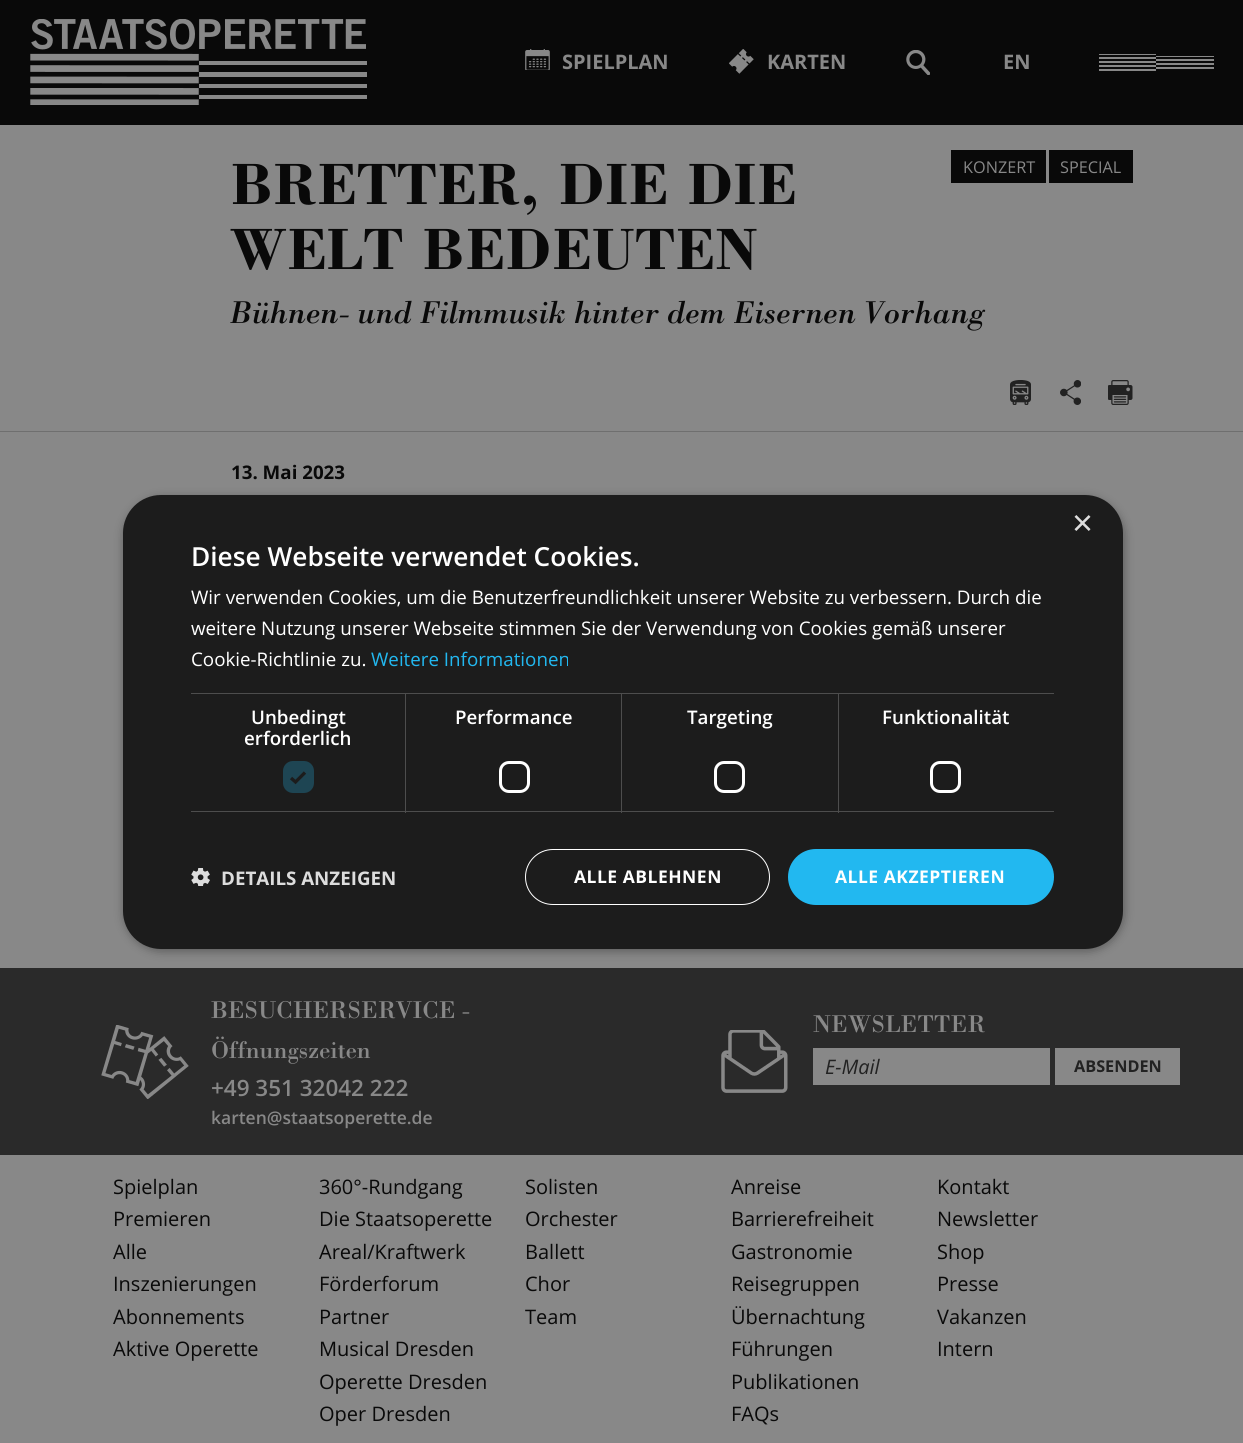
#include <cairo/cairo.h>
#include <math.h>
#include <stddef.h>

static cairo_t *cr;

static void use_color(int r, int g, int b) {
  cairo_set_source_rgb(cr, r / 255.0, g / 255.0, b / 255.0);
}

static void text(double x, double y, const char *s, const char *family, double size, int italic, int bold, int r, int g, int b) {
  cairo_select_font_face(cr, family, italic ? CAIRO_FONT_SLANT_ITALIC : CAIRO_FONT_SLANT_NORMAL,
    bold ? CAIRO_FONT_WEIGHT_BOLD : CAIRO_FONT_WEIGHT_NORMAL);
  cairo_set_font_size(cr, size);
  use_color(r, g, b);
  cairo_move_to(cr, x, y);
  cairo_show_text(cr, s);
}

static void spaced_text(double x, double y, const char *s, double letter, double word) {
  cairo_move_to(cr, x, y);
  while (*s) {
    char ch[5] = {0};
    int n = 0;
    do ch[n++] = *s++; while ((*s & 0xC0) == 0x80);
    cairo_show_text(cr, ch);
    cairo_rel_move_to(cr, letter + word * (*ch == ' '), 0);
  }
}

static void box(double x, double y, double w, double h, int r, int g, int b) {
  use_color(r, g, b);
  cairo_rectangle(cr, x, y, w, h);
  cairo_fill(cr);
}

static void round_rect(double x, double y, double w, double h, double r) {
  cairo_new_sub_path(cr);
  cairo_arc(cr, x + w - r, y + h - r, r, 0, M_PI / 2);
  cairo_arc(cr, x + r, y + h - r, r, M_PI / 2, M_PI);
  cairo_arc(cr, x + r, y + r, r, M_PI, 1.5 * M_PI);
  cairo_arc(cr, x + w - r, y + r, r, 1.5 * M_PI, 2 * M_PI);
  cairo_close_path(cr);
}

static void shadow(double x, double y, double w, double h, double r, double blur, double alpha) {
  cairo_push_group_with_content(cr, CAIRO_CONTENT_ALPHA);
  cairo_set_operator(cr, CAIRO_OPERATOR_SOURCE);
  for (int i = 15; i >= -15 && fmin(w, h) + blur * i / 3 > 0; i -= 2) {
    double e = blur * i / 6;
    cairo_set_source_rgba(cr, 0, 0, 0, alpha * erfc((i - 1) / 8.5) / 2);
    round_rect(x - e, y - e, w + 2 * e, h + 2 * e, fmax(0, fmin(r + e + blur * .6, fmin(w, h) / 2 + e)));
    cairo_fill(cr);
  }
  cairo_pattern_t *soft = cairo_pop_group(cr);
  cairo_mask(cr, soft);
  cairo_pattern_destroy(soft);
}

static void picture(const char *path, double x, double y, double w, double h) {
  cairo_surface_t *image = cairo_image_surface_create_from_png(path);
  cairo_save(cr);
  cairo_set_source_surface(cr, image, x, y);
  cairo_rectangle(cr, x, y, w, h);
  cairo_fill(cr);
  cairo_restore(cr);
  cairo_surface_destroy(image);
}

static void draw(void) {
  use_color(136, 136, 136);
  cairo_paint(cr);
  box(0, 0, 1243, 125, 9, 9, 9);
  picture("img_01.png", 30, 19, 337, 86);
  picture("img_02.png", 525, 49, 25, 21);
  picture("img_03.png", 729, 49, 25, 25);
  picture("img_04.png", 906, 50, 24, 25);
  cairo_save(cr);
  cairo_rectangle(cr, 1099, 54, 115, 17);
  cairo_clip(cr);
  use_color(136, 136, 136);
  cairo_new_path(cr);
  cairo_move_to(cr, 1156, 71);
  cairo_line_to(cr, 1099, 71);
  cairo_line_to(cr, 1099, 69);
  cairo_line_to(cr, 1156, 69);
  cairo_close_path(cr);
  cairo_move_to(cr, 1156, 67);
  cairo_line_to(cr, 1099, 67);
  cairo_line_to(cr, 1099, 65);
  cairo_line_to(cr, 1156, 65);
  cairo_close_path(cr);
  cairo_move_to(cr, 1156, 63);
  cairo_line_to(cr, 1099, 63);
  cairo_line_to(cr, 1099, 61);
  cairo_line_to(cr, 1156, 61);
  cairo_close_path(cr);
  cairo_move_to(cr, 1156, 59);
  cairo_line_to(cr, 1099, 59);
  cairo_line_to(cr, 1099, 57);
  cairo_line_to(cr, 1156, 57);
  cairo_close_path(cr);
  cairo_move_to(cr, 1156, 55);
  cairo_line_to(cr, 1099, 55);
  cairo_line_to(cr, 1099, 53);
  cairo_line_to(cr, 1156, 53);
  cairo_close_path(cr);
  cairo_fill(cr);
  cairo_restore(cr);
  box(1156, 56, 58, 1, 136, 136, 136);
  box(1156, 59, 58, 2, 136, 136, 136);
  box(1156, 63, 58, 2, 136, 136, 136);
  box(1156, 67, 58, 2, 136, 136, 136);
  box(0, 431, 1243, 1, 111, 111, 111);
  box(951, 150, 95, 33, 9, 9, 9);
  box(1049, 150, 84, 33, 9, 9, 9);
  picture("img_05.png", 1010, 380, 21, 25);
  picture("img_06.png", 1060, 380, 21, 25);
  picture("img_07.png", 1108, 380, 25, 25);
  box(0, 968, 1243, 187, 42, 42, 42);
  picture("img_08.png", 101, 1025, 88, 74);
  picture("img_09.png", 721, 1030, 67, 63);
  box(813, 1048, 237, 37, 136, 136, 136);
  box(1055, 1048, 125, 37, 136, 136, 136);
  use_color(0, 0, 0);
  shadow(124, 498, 1000, 453, 38, 5, 0.35);
  use_color(28, 28, 28);
  round_rect(123, 495, 1000, 454, 38);
  cairo_fill(cr);
  box(191, 693, 863, 1, 77, 77, 77);
  box(405, 693, 1, 120, 77, 77, 77);
  box(191, 811, 215, 1, 77, 77, 77);
  use_color(30, 69, 83);
  round_rect(283, 761, 31, 32, 10);
  cairo_fill(cr);
  cairo_new_path(cr);
  cairo_move_to(cr, 291, 778);
  cairo_line_to(cr, 295.5, 782);
  cairo_line_to(cr, 305, 772.5);
  use_color(28, 28, 28);
  cairo_set_line_width(cr, 3.3);
  cairo_stroke(cr);
  box(621, 693, 1, 120, 77, 77, 77);
  box(406, 811, 217, 1, 77, 77, 77);
  round_rect(500.5, 762.5, 28, 29, 8.5);
  use_color(255, 255, 255);
  cairo_set_line_width(cr, 3);
  cairo_stroke(cr);
  box(838, 693, 1, 120, 77, 77, 77);
  box(623, 811, 431, 1, 77, 77, 77);
  round_rect(715.5, 762.5, 28, 29, 8.5);
  use_color(255, 255, 255);
  cairo_stroke(cr);
  round_rect(931.5, 762.5, 28, 29, 8.5);
  cairo_stroke(cr);
  picture("img_10.png", 191, 868, 19, 18);
  round_rect(525.5, 849.5, 244, 55, 27.5);
  cairo_set_line_width(cr, 1);
  cairo_stroke(cr);
  use_color(34, 184, 240);
  round_rect(788, 849, 266, 56, 28);
  cairo_fill(cr);
  text(562, 69, "SPIELPLAN", "Open Sans", 20, 0, 1, 136, 136, 136);
  text(767, 69, "KARTEN", "Open Sans", 20, 0, 1, 136, 136, 136);
  text(1003, 69, "EN", "Open Sans", 20, 0, 1, 136, 136, 136);
  text(230, 204, "BRETTER, DIE DIE", "Bodoni", 60, 0, 1, 9, 9, 9);
  text(230, 269, "WELT BEDEUTEN", "Bodoni", 60, 0, 1, 9, 9, 9);
  text(230, 323, "Bühnen- und Filmmusik hinter dem Eisernen Vorhang", "Bodoni", 32.5, 1, 0, 9, 9, 9);
  text(963, 173, "KONZERT", "Open Sans", 16.25, 0, 0, 136, 136, 136);
  text(1060, 173, "SPECIAL", "Open Sans", 16.25, 0, 0, 136, 136, 136);
  text(231, 479, "13. Mai 2023", "Open Sans", 18.75, 0, 1, 9, 9, 9);
  text(211, 1018, "BESUCHERSERVICE -", "Bodoni", 25, 0, 0, 136, 136, 136);
  text(211, 1058, "Öffnungszeiten", "Bodoni", 25, 0, 0, 136, 136, 136);
  text(211, 1096, "+49 351 32042 222", "Open Sans SemiBold", 22.5, 0, 0, 136, 136, 136);
  text(211, 1124, "karten@staatsoperette.de", "Open Sans SemiBold", 17.5, 0, 0, 136, 136, 136);
  text(813, 1032, "NEWSLETTER", "Bodoni", 25, 0, 0, 136, 136, 136);
  text(825, 1074, "E-Mail", "Open Sans", 20, 1, 0, 34, 34, 34);
  text(1074, 1072, "ABSENDEN", "Open Sans", 16.25, 0, 1, 34, 34, 34);
  text(113, 1194, "Spielplan", "Open Sans", 20, 0, 0, 9, 9, 9);
  text(113, 1226, "Premieren", "Open Sans", 20, 0, 0, 9, 9, 9);
  text(113, 1259, "Alle", "Open Sans", 20, 0, 0, 9, 9, 9);
  text(113, 1291, "Inszenierungen", "Open Sans", 20, 0, 0, 9, 9, 9);
  text(113, 1324, "Abonnements", "Open Sans", 20, 0, 0, 9, 9, 9);
  text(113, 1356, "Aktive Operette", "Open Sans", 20, 0, 0, 9, 9, 9);
  text(319, 1194, "360°-Rundgang", "Open Sans", 20, 0, 0, 9, 9, 9);
  text(319, 1226, "Die Staatsoperette", "Open Sans", 20, 0, 0, 9, 9, 9);
  text(319, 1259, "Areal/Kraftwerk", "Open Sans", 20, 0, 0, 9, 9, 9);
  text(319, 1291, "Förderforum", "Open Sans", 20, 0, 0, 9, 9, 9);
  text(319, 1324, "Partner", "Open Sans", 20, 0, 0, 9, 9, 9);
  text(319, 1356, "Musical Dresden", "Open Sans", 20, 0, 0, 9, 9, 9);
  text(319, 1389, "Operette Dresden", "Open Sans", 20, 0, 0, 9, 9, 9);
  text(319, 1421, "Oper Dresden", "Open Sans", 20, 0, 0, 9, 9, 9);
  text(525, 1194, "Solisten", "Open Sans", 20, 0, 0, 9, 9, 9);
  text(525, 1226, "Orchester", "Open Sans", 20, 0, 0, 9, 9, 9);
  text(525, 1259, "Ballett", "Open Sans", 20, 0, 0, 9, 9, 9);
  text(525, 1291, "Chor", "Open Sans", 20, 0, 0, 9, 9, 9);
  text(525, 1324, "Team", "Open Sans", 20, 0, 0, 9, 9, 9);
  text(731, 1194, "Anreise", "Open Sans", 20, 0, 0, 9, 9, 9);
  text(731, 1226, "Barrierefreiheit", "Open Sans", 20, 0, 0, 9, 9, 9);
  text(731, 1259, "Gastronomie", "Open Sans", 20, 0, 0, 9, 9, 9);
  text(731, 1291, "Reisegruppen", "Open Sans", 20, 0, 0, 9, 9, 9);
  text(731, 1324, "Übernachtung", "Open Sans", 20, 0, 0, 9, 9, 9);
  text(731, 1356, "Führungen", "Open Sans", 20, 0, 0, 9, 9, 9);
  text(731, 1389, "Publikationen", "Open Sans", 20, 0, 0, 9, 9, 9);
  text(731, 1421, "FAQs", "Open Sans", 20, 0, 0, 9, 9, 9);
  text(937, 1194, "Kontakt", "Open Sans", 20, 0, 0, 9, 9, 9);
  text(937, 1226, "Newsletter", "Open Sans", 20, 0, 0, 9, 9, 9);
  text(937, 1259, "Shop", "Open Sans", 20, 0, 0, 9, 9, 9);
  text(937, 1291, "Presse", "Open Sans", 20, 0, 0, 9, 9, 9);
  text(937, 1324, "Vakanzen", "Open Sans", 20, 0, 0, 9, 9, 9);
  text(937, 1356, "Intern", "Open Sans", 20, 0, 0, 9, 9, 9);
  text(1072, 535, "×", "Liberation Sans", 36, 0, 0, 221, 221, 221);
  text(191, 566, "Diese Webseite verwendet Cookies.", "Open Sans SemiBold", 26.25, 0, 0, 255, 255, 255);
  text(191, 604, "Wir verwenden Cookies, um die Benutzerfreundlichkeit unserer Website zu verbessern. Durch die", "Open Sans", 18.75, 0, 0, 255, 255, 255);
  text(191, 635, "weitere Nutzung unserer Webseite stimmen Sie der Verwendung von Cookies gemäß unserer", "Open Sans", 18.75, 0, 0, 255, 255, 255);
  text(191, 666, "Cookie-Richtlinie zu.", "Open Sans", 18.75, 0, 0, 255, 255, 255);
  text(371, 666, "Weitere Informationen", "Open Sans", 18.75, 0, 0, 34, 184, 240);
  text(251, 724, "Unbedingt", "Open Sans SemiBold", 18.75, 0, 0, 255, 255, 255);
  text(244, 745, "erforderlich", "Open Sans SemiBold", 18.75, 0, 0, 255, 255, 255);
  text(455, 724, "Performance", "Open Sans SemiBold", 18.75, 0, 0, 255, 255, 255);
  text(687, 724, "Targeting", "Open Sans SemiBold", 18.75, 0, 0, 255, 255, 255);
  text(882, 724, "Funktionalität", "Open Sans SemiBold", 18.75, 0, 0, 255, 255, 255);
  text(221, 885, "DETAILS ANZEIGEN", "Open Sans", 18.75, 0, 1, 221, 221, 221);
  cairo_set_font_size(cr, 17.5);
  use_color(255, 255, 255);
  spaced_text(574, 883, "ALLE ABLEHNEN", 0.5, 0);
  spaced_text(835, 883, "ALLE AKZEPTIEREN", 0.5, 0);
}

int main(void) {
  cairo_surface_t *surface = cairo_image_surface_create(CAIRO_FORMAT_RGB24, 1243, 1443);
  cr = cairo_create(surface);
  cairo_font_options_t *options = cairo_font_options_create();
  cairo_font_options_set_hint_metrics(options, CAIRO_HINT_METRICS_OFF);
  cairo_font_options_set_hint_style(options, CAIRO_HINT_STYLE_NONE);
  cairo_set_font_options(cr, options);
  cairo_set_miter_limit(cr, 4);
  draw();
  cairo_surface_write_to_png(surface, "out.png");
  cairo_font_options_destroy(options);
  cairo_destroy(cr);
  cairo_surface_destroy(surface);
  return 0;
}
